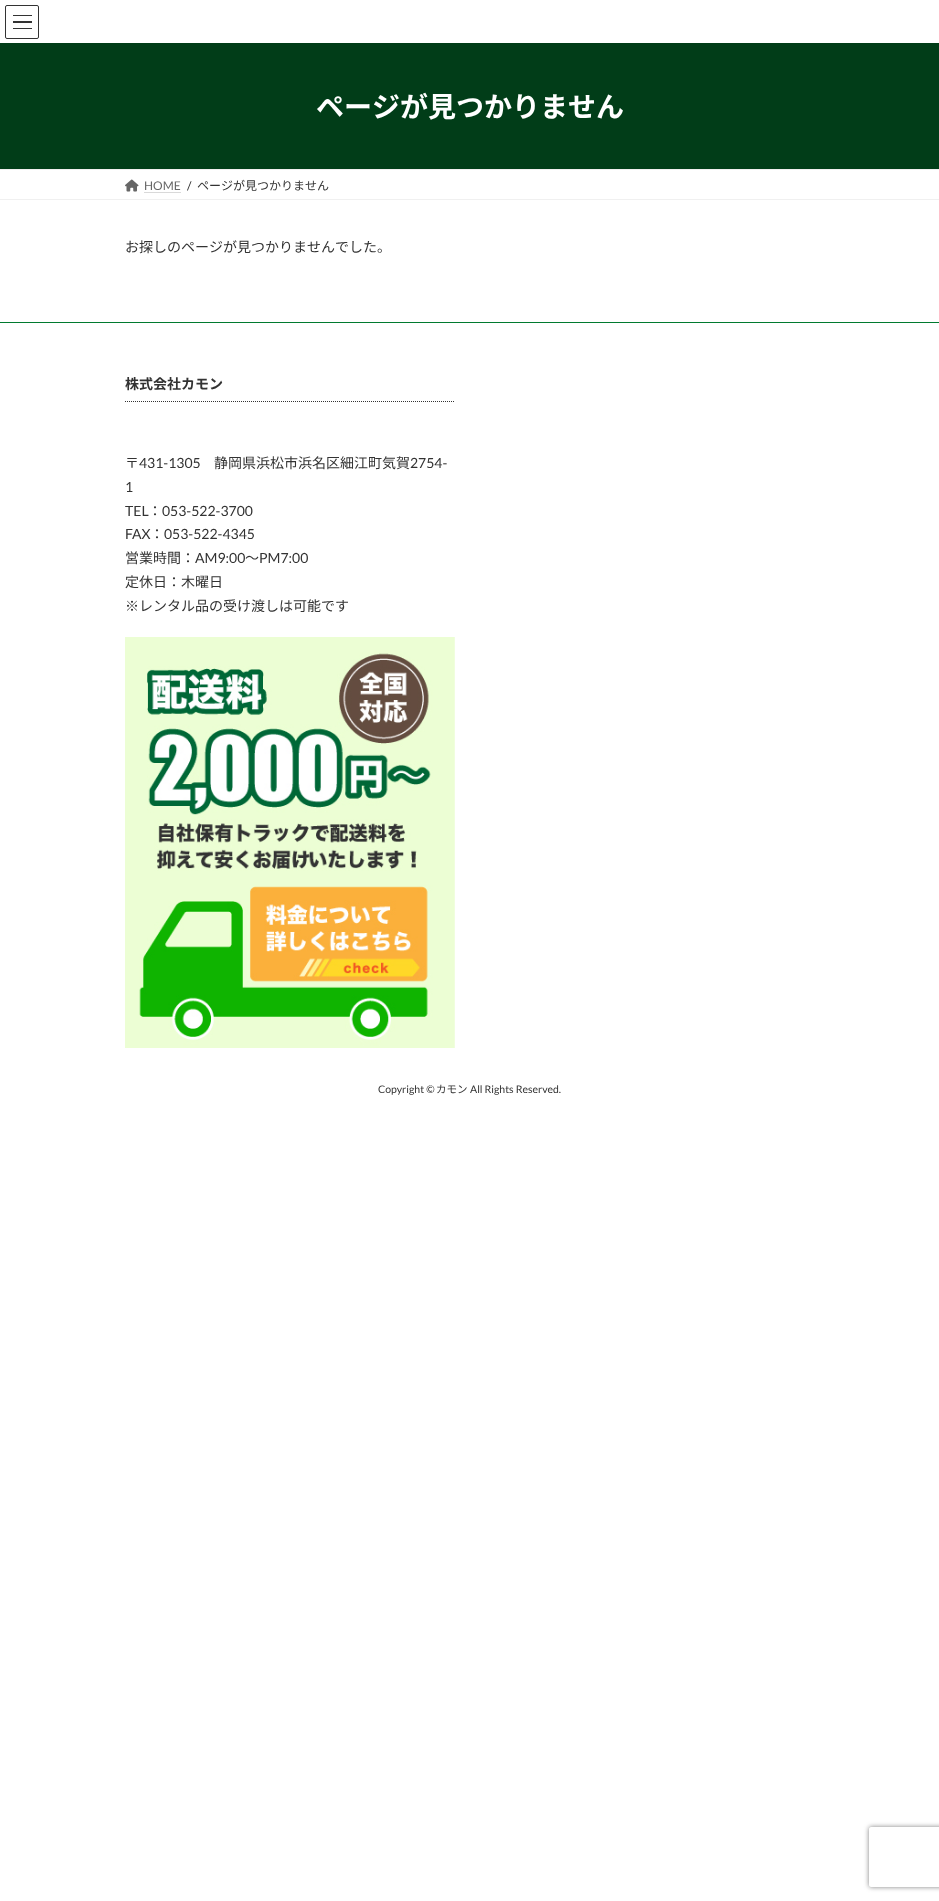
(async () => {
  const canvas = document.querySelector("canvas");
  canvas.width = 939;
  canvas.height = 1901;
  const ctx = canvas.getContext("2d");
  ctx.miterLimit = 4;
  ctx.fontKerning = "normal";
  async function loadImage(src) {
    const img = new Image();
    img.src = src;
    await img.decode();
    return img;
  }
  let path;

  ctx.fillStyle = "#ffffff";
  ctx.fillRect(0, 0, 939, 1901);
  for (const [x, y, w, h, color] of [
    [13, 15, 19, 1, "#333333"],
    [13, 21, 19, 2, "#333333"],
    [13, 28, 19, 1, "#333333"],
  ]) {
    ctx.fillStyle = color;
    ctx.fillRect(x, y, w, h);
  }
  ctx.beginPath();
  ctx.roundRect(5.5, 5.5, 33, 33, 1.5);
  ctx.strokeStyle = "#333333";
  ctx.stroke();
  for (const [x, y, w, h, color] of [
    [0, 43, 939, 126, "#013d18"],
    [0, 169, 939, 1, "#f0f0f0"],
    [0, 199, 939, 1, "#f0f0f0"],
  ]) {
    ctx.fillStyle = color;
    ctx.fillRect(x, y, w, h);
  }
  ctx.drawImage(await loadImage("img/1.png"), 125, 179, 14, 13);
  path = new Path2D("M144.5 192.5H181");
  ctx.strokeStyle = "#b3b3b3";
  ctx.setLineDash([1, 1]);
  ctx.stroke(path);
  ctx.fillStyle = "#017a2f";
  ctx.fillRect(0, 322, 939, 1);
  path = new Path2D("M125 401.5H455");
  ctx.strokeStyle = "#333333";
  ctx.stroke(path);
  ctx.drawImage(await loadImage("img/2.png"), 125, 637, 330, 411);
  ctx.save();
  path = new Path2D("M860 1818H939V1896H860ZM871 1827H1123C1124 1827 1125 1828 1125 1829V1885C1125 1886 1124 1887 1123 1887H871C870 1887 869 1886 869 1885V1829C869 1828 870 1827 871 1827Z");
  ctx.clip(path, "evenodd");
  ctx.fillStyle = "#808080";
  ctx.filter = "blur(2.5px)";
  ctx.beginPath();
  ctx.roundRect(869, 1827, 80, 60, 2);
  ctx.fill();
  ctx.filter = "none";
  ctx.restore();
  ctx.font = "bold 28px Noto Sans JP";
  ctx.fillStyle = "#ffffff";
  ctx.fillText("ページが見つかりません", 316, 117);
  ctx.font = "12px Lato";
  ctx.fillStyle = "#666666";
  ctx.fillText("HOME", 144, 190);
  ctx.fillStyle = "#333333";
  ctx.fillText("/", 187, 190);
  ctx.font = "12px Noto Sans JP";
  ctx.fillText("ページが見つかりません", 197, 190);
  ctx.font = "14px Noto Sans JP";
  ctx.fillText("お探しのページが見つかりませんでした。", 125, 252);
  ctx.font = "bold 14px Noto Sans JP";
  ctx.fillText("株式会社カモン", 125, 389);
  ctx.font = "14px Noto Sans JP";
  ctx.fillText("〒", 125, 468);
  ctx.font = "14px Lato";
  ctx.fillText("431-1305", 139, 468);
  ctx.font = "14px Noto Sans JP";
  ctx.fillText("静岡県浜松市浜名区細江町気賀", 214, 468);
  ctx.font = "14px Lato";
  for (const [text, x, y] of [
    ["2754-", 410, 468],
    ["1", 125, 492],
    ["TEL", 125, 516],
  ]) {
    ctx.fillText(text, x, y);
  }
  ctx.font = "14px Noto Sans JP";
  ctx.fillText("：", 148, 516);
  ctx.font = "14px Lato";
  ctx.fillText("053-522-3700", 162, 516);
  ctx.fillText("FAX", 125, 539);
  ctx.font = "14px Noto Sans JP";
  ctx.fillText("：", 150, 539);
  ctx.font = "14px Lato";
  ctx.fillText("053-522-4345", 164, 539);
  ctx.font = "14px Noto Sans JP";
  ctx.fillText("営業時間：", 125, 563);
  ctx.font = "14px Lato";
  ctx.fillText("AM9:00", 195, 563);
  ctx.font = "14px Noto Sans JP";
  ctx.fillText("～", 245, 563);
  ctx.font = "14px Lato";
  ctx.fillText("PM7:00", 259, 563);
  ctx.font = "14px Noto Sans JP";
  ctx.fillText("定休日：木曜日", 125, 587);
  ctx.fillText("※レンタル品の受け渡しは可能です", 125, 611);
  ctx.font = "10.5px Lato";
  ctx.fillText("Copyright ©", 378, 1093);
  ctx.font = "10.5px Noto Sans JP";
  ctx.fillText("カモン", 436, 1093);
  ctx.font = "10.5px Lato";
  ctx.fillText("All Rights Reserved.", 470, 1093);
})();
